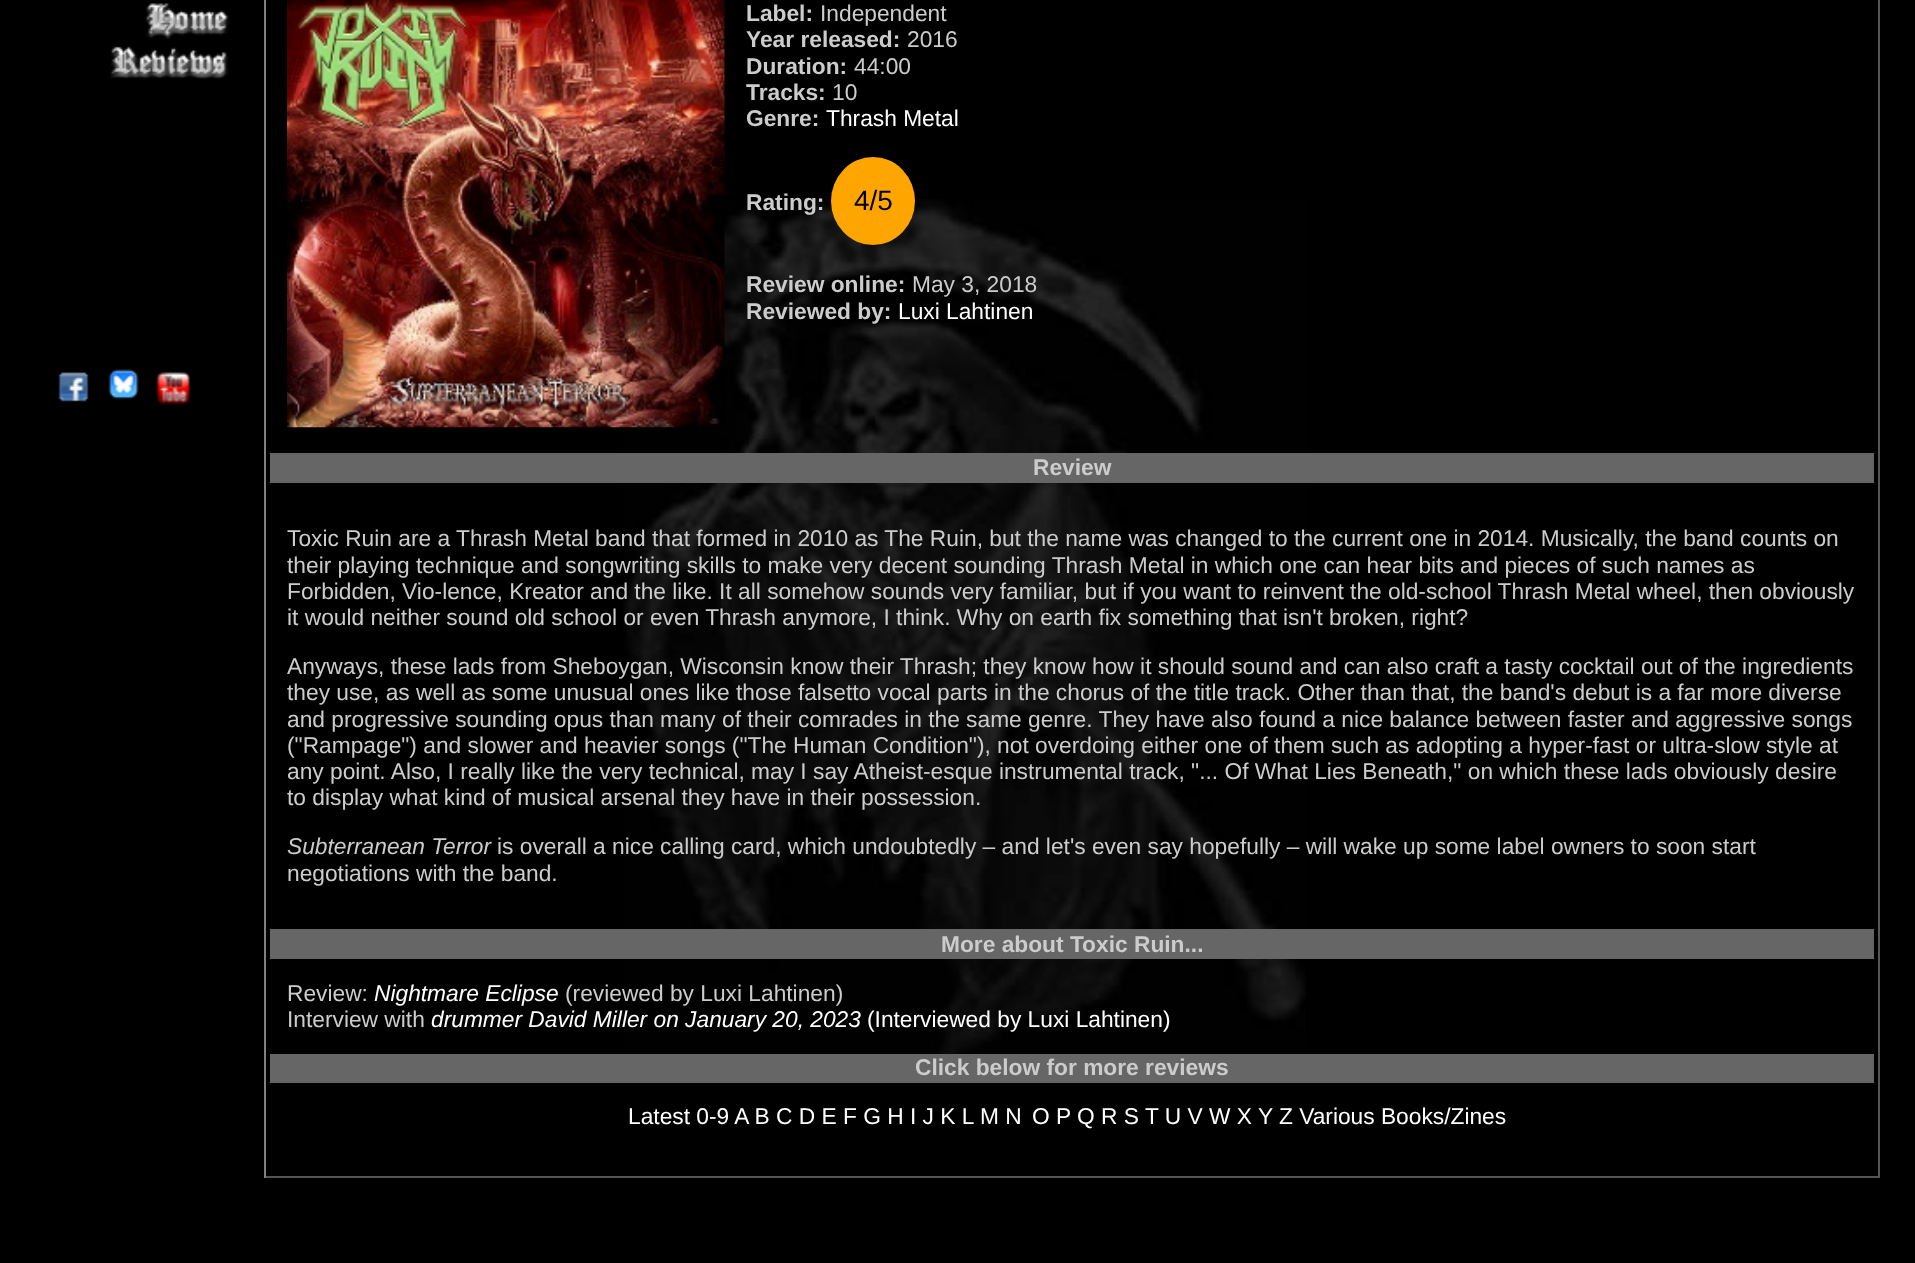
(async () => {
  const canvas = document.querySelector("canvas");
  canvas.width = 1915;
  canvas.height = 1263;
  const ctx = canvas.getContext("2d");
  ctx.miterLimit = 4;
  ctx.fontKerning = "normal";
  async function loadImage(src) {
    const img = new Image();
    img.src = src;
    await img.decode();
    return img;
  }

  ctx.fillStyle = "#000000";
  ctx.fillRect(0, 0, 1915, 1263);
  ctx.drawImage(await loadImage("img/1.png"), 623, 199, 683, 855);
  ctx.drawImage(await loadImage("img/2.png"), 145, 3, 85, 36);
  ctx.drawImage(await loadImage("img/3.png"), 110, 45, 119, 34);
  ctx.drawImage(await loadImage("img/4.png"), 58, 372, 31, 30);
  ctx.drawImage(await loadImage("img/5.png"), 108, 369, 31, 31);
  ctx.drawImage(await loadImage("img/6.png"), 156, 371, 35, 34);
  for (const [x, y, w, h, color] of [
    [1878, 0, 2, 1178, "#555555"],
    [264, 1176, 1616, 2, "#555555"],
    [264, 0, 2, 1178, "#808080"],
  ]) {
    ctx.fillStyle = color;
    ctx.fillRect(x, y, w, h);
  }
  ctx.drawImage(await loadImage("img/7.png"), 287, 0, 438, 428);
  ctx.fillStyle = "#ffa500";
  ctx.beginPath();
  ctx.ellipse(873, 201, 42, 44, 0, 0, Math.PI * 2);
  ctx.fill();
  for (const [x, y, w, h, color] of [
    [270, 453, 1604, 30, "#666666"],
    [270, 929, 1604, 30, "#666666"],
    [270, 1054, 1604, 29, "#666666"],
  ]) {
    ctx.fillStyle = color;
    ctx.fillRect(x, y, w, h);
  }
  ctx.font = "bold 22.75px Liberation Sans";
  ctx.fillStyle = "#cccccc";
  ctx.fillText("Label:", 746, 21);
  ctx.font = "22.75px Liberation Sans";
  ctx.fillText("Independent", 820, 21);
  ctx.font = "bold 22.75px Liberation Sans";
  ctx.fillText("Year released:", 746, 47);
  ctx.font = "22.75px Liberation Sans";
  ctx.fillText("2016", 907, 47);
  ctx.font = "bold 22.75px Liberation Sans";
  ctx.fillText("Duration:", 746, 74);
  ctx.font = "22.75px Liberation Sans";
  ctx.fillText("44:00", 854, 74);
  ctx.font = "bold 22.75px Liberation Sans";
  ctx.fillText("Tracks:", 746, 100);
  ctx.font = "22.75px Liberation Sans";
  ctx.fillText("10", 832, 100);
  ctx.font = "bold 22.75px Liberation Sans";
  ctx.fillText("Genre:", 746, 126);
  ctx.font = "22.75px Liberation Sans";
  ctx.fillStyle = "#ffffff";
  ctx.fillText("Thrash Metal", 826, 126);
  ctx.font = "bold 22.75px Liberation Sans";
  ctx.fillStyle = "#cccccc";
  ctx.fillText("Rating:", 746, 210);
  ctx.font = "28px Liberation Sans";
  ctx.fillStyle = "#000000";
  ctx.fillText("4/5", 854, 210);
  ctx.font = "bold 22.75px Liberation Sans";
  ctx.fillStyle = "#cccccc";
  ctx.fillText("Review online:", 746, 292);
  ctx.font = "22.75px Liberation Sans";
  ctx.fillText("May 3, 2018", 912, 292);
  ctx.font = "bold 22.75px Liberation Sans";
  ctx.fillText("Reviewed by:", 746, 319);
  ctx.font = "22.75px Liberation Sans";
  ctx.fillStyle = "#ffffff";
  ctx.fillText("Luxi Lahtinen", 898, 319);
  ctx.font = "bold 22.75px Liberation Sans";
  ctx.fillStyle = "#cccccc";
  ctx.fillText("Review", 1033, 475);
  ctx.font = "22.75px Liberation Sans";
  for (const [text, x, y] of [
    ["Toxic Ruin are a Thrash Metal band that formed in 2010 as The Ruin, but the name was changed to the current one in 2014. Musically, the band counts on", 287, 546],
    ["their playing technique and songwriting skills to make very decent sounding Thrash Metal in which one can hear bits and pieces of such names as", 287, 573],
    ["Forbidden, Vio-lence, Kreator and the like. It all somehow sounds very familiar, but if you want to reinvent the old-school Thrash Metal wheel, then obviously", 287, 599],
    ["it would neither sound old school or even Thrash anymore, I think. Why on earth fix something that isn't broken, right?", 287, 625],
    ["Anyways, these lads from Sheboygan, Wisconsin know their Thrash; they know how it should sound and can also craft a tasty cocktail out of the ingredients", 287, 674],
    ["they use, as well as some unusual ones like those falsetto vocal parts in the chorus of the title track. Other than that, the band's debut is a far more diverse", 287, 700],
    ["and progressive sounding opus than many of their comrades in the same genre. They have also found a nice balance between faster and aggressive songs", 287, 727],
    ["(\"Rampage\") and slower and heavier songs (\"The Human Condition\"), not overdoing either one of them such as adopting a hyper-fast or ultra-slow style at", 287, 753],
    ["any point. Also, I really like the very technical, may I say Atheist-esque instrumental track, \"... Of What Lies Beneath,\" on which these lads obviously desire", 287, 779],
    ["to display what kind of musical arsenal they have in their possession.", 287, 805],
  ]) {
    ctx.fillText(text, x, y);
  }
  ctx.font = "italic 22.75px Liberation Sans";
  ctx.fillText("Subterranean Terror", 287, 854);
  ctx.font = "22.75px Liberation Sans";
  ctx.fillText("is overall a nice calling card, which undoubtedly – and let's even say hopefully – will wake up some label owners to soon start", 497, 854);
  ctx.fillText("negotiations with the band.", 287, 881);
  ctx.font = "bold 22.75px Liberation Sans";
  ctx.fillText("More about Toxic Ruin...", 941, 952);
  ctx.font = "22.75px Liberation Sans";
  ctx.fillText("Review:", 287, 1001);
  ctx.font = "italic 22.75px Liberation Sans";
  ctx.fillStyle = "#ffffff";
  ctx.fillText("Nightmare Eclipse", 374, 1001);
  ctx.font = "22.75px Liberation Sans";
  ctx.fillStyle = "#cccccc";
  ctx.fillText("(reviewed by Luxi Lahtinen)", 565, 1001);
  ctx.fillText("Interview with", 287, 1027);
  ctx.font = "italic 22.75px Liberation Sans";
  ctx.fillStyle = "#ffffff";
  ctx.fillText("drummer David Miller on January 20, 2023", 431, 1027);
  ctx.font = "22.75px Liberation Sans";
  ctx.fillText("(Interviewed by Luxi Lahtinen)", 867, 1027);
  ctx.font = "bold 22.75px Liberation Sans";
  ctx.fillStyle = "#cccccc";
  ctx.fillText("Click below for more reviews", 915, 1075);
  ctx.font = "22.75px Liberation Sans";
  ctx.fillStyle = "#ffffff";
  ctx.fillText("Latest 0-9 A B C D E F G H I J K L M N", 628, 1124);
  ctx.fillText("O P Q R S T U V W X Y Z Various Books/Zines", 1032, 1124);
})();
